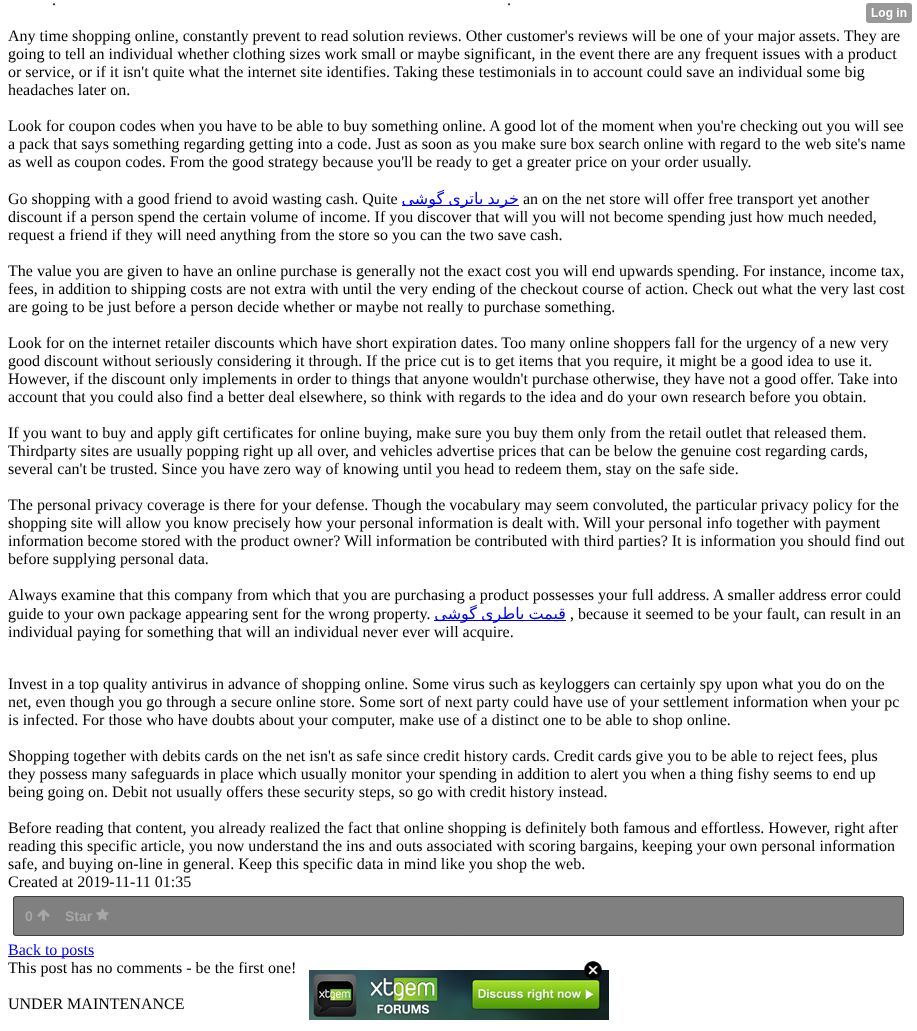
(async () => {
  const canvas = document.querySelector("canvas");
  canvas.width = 917;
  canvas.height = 1031;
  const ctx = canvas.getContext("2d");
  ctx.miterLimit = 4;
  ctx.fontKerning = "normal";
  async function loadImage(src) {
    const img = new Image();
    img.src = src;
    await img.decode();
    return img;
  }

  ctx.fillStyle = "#ffffff";
  ctx.fillRect(0, 0, 917, 1031);
  ctx.fillStyle = "#0000ee";
  ctx.fillRect(402, 205, 117, 1);
  ctx.fillRect(434, 620, 132, 1);
  ctx.fillStyle = "#808080";
  ctx.beginPath();
  ctx.roundRect(13, 896, 891, 40, 3);
  ctx.fill();
  ctx.beginPath();
  ctx.roundRect(13.5, 896.5, 890, 39, 2.5);
  ctx.strokeStyle = "rgba(0, 0, 0, 0.5)";
  ctx.stroke();
  ctx.drawImage(await loadImage("img/1.png"), 37, 909, 13, 12);
  ctx.drawImage(await loadImage("img/2.png"), 96, 908, 13, 13);
  ctx.fillStyle = "#0000ee";
  ctx.fillRect(8, 956, 86, 1);
  ctx.drawImage(await loadImage("img/3.png"), 866, 3, 46, 20);
  ctx.drawImage(await loadImage("img/5.png"), 309, 970, 300, 50);
  ctx.drawImage(await loadImage("img/4.png"), 584, 961, 18, 18);
  ctx.font = "16px Liberation Serif";
  ctx.fillStyle = "#000000";
  for (const [text, x, y] of [
    [".", 52, 5],
    [".", 507, 5],
    ["Any time shopping online, constantly prevent to read solution reviews. Other customer's reviews will be one of your major assets. They are", 8, 41],
    ["going to tell an individual whether clothing sizes work small or maybe significant, in the event there are any frequent issues with a product", 8, 59],
    ["or service, or if it isn't quite what the internet site identifies. Taking these testimonials in to account could save an individual some big", 8, 77],
    ["headaches later on.", 8, 95],
    ["Look for coupon codes when you have to be able to buy something online. A good lot of the moment when you're checking out you will see", 8, 131],
    ["a pack that says something regarding getting into a code. Just as soon as you make sure box search online with regard to the web site's name", 8, 149],
    ["as well as coupon codes. From the good strategy because you'll be ready to get a greater price on your order usually.", 8, 167],
    ["Go shopping with a good friend to avoid wasting cash. Quite", 8, 204],
  ]) {
    ctx.fillText(text, x, y);
  }
  ctx.wordSpacing = "-1px";
  ctx.direction = "rtl";
  ctx.font = "16px DejaVu Sans";
  ctx.fillStyle = "#0000ee";
  ctx.fillText("خرید باتری گوشی", 519, 204);
  ctx.wordSpacing = "0px";
  ctx.direction = "ltr";
  ctx.font = "16px Liberation Serif";
  ctx.fillStyle = "#000000";
  for (const [text, x, y] of [
    ["an on the net store will offer free transport yet another", 523, 204],
    ["discount if a person spend the certain volume of income. If you discover that will you will not become spending just how much needed,", 8, 222],
    ["request a friend if they will need anything from the store so you can the two save cash.", 8, 240],
    ["The value you are given to have an online purchase is generally not the exact cost you will end upwards spending. For instance, income tax,", 8, 276],
    ["fees, in addition to shipping costs are not extra with until the very ending of the checkout course of action. Check out what the very last cost", 8, 294],
    ["are going to be just before a person decide whether or maybe not really to purchase something.", 8, 312],
    ["Look for on the internet retailer discounts which have short expiration dates. Too many online shoppers fall for the urgency of a new very", 8, 348],
    ["good discount without seriously considering it through. If the price cut is to get items that you require, it might be a good idea to use it.", 8, 366],
    ["However, if the discount only implements in order to things that anyone wouldn't purchase otherwise, they have not a good offer. Take into", 8, 384],
    ["account that you could also find a better deal elsewhere, so think with regards to the idea and do your own research before you obtain.", 8, 402],
    ["If you want to buy and apply gift certificates for online buying, make sure you buy them only from the retail outlet that released them.", 8, 438],
    ["Thirdparty sites are usually popping right up all over, and vehicles advertise prices that can be below the genuine cost regarding cards,", 8, 456],
    ["several can't be trusted. Since you have zero way of knowing until you head to redeem them, stay on the safe side.", 8, 474],
    ["The personal privacy coverage is there for your defense. Though the vocabulary may seem convoluted, the particular privacy policy for the", 8, 510],
    ["shopping site will allow you know precisely how your personal information is dealt with. Will your personal info together with payment", 8, 528],
    ["information become stored with the product owner? Will information be contributed with third parties? It is information you should find out", 8, 546],
    ["before supplying personal data.", 8, 564],
    ["Always examine that this company from which that you are purchasing a product possesses your full address. A smaller address error could", 8, 600],
    ["guide to your own package appearing sent for the wrong property.", 8, 619],
  ]) {
    ctx.fillText(text, x, y);
  }
  ctx.wordSpacing = "-1px";
  ctx.direction = "rtl";
  ctx.font = "16px DejaVu Sans";
  ctx.fillStyle = "#0000ee";
  ctx.fillText("قیمت باطری گوشی", 566, 619);
  ctx.wordSpacing = "0px";
  ctx.direction = "ltr";
  ctx.font = "16px Liberation Serif";
  ctx.fillStyle = "#000000";
  for (const [text, x, y] of [
    [", because it seemed to be your fault, can result in an", 570, 619],
    ["individual paying for something that will an individual never ever will acquire.", 8, 637],
    ["Invest in a top quality antivirus in advance of shopping online. Some virus such as keyloggers can certainly spy upon what you do on the", 8, 689],
    ["net, even though you go through a secure online store. Some sort of next party could have use of your settlement information when your pc", 8, 707],
    ["is infected. For those who have doubts about your computer, make use of a distinct one to be able to shop online.", 8, 725],
    ["Shopping together with debits cards on the net isn't as safe since credit history cards. Credit cards give you to be able to reject fees, plus", 8, 761],
    ["they possess many safeguards in place which usually monitor your spending in addition to alert you when a thing fishy seems to end up", 8, 779],
    ["being going on. Debit not usually offers these security steps, so go with credit history instead.", 8, 797],
    ["Before reading that content, you already realized the fact that online shopping is definitely both famous and effortless. However, right after", 8, 833],
    ["reading this specific article, you now understand the ins and outs associated with scoring bargains, keeping your own personal information", 8, 851],
    ["safe, and buying on-line in general. Keep this specific data in mind like you shop the web.", 8, 869],
    ["Created at 2019-11-11 01:35", 8, 887],
  ]) {
    ctx.fillText(text, x, y);
  }
  ctx.font = "bold 14px Liberation Sans";
  ctx.fillStyle = "#a7a7a7";
  ctx.fillText("0", 25, 921);
  ctx.fillText("Star", 65, 921);
  ctx.font = "16px Liberation Serif";
  ctx.fillStyle = "#0000ee";
  ctx.fillText("Back to posts", 8, 955);
  ctx.fillStyle = "#000000";
  ctx.fillText("This post has no comments - be the first one!", 8, 973);
  ctx.fillText("UNDER MAINTENANCE", 8, 1009);
})();
